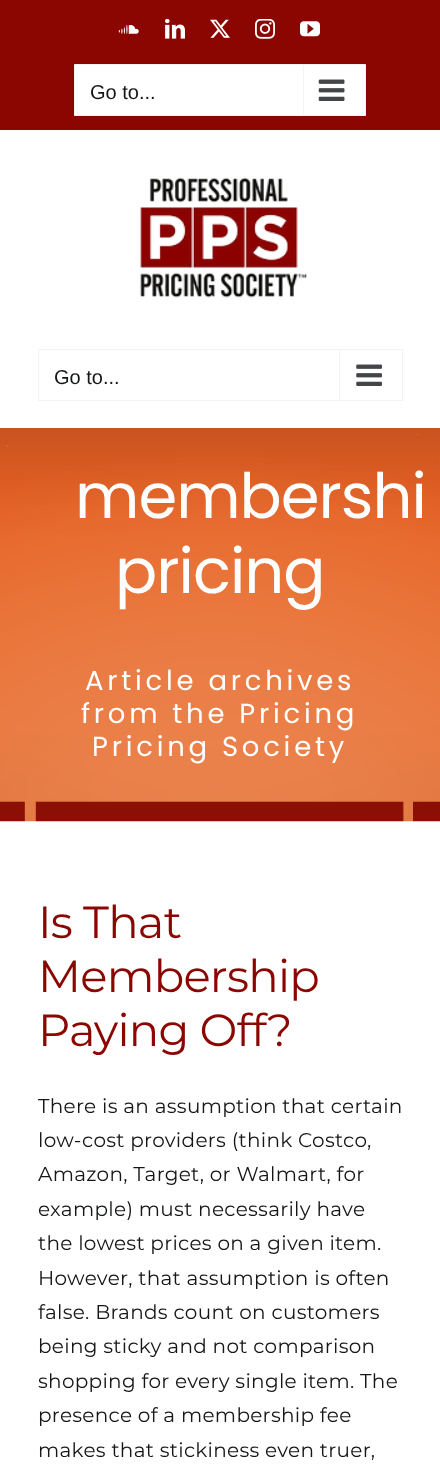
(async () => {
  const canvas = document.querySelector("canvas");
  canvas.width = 440;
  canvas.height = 1478;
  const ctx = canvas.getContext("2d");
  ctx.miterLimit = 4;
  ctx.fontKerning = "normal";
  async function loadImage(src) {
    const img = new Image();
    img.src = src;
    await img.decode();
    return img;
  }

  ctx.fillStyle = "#ffffff";
  ctx.fillRect(0, 0, 440, 1478);
  ctx.fillStyle = "#8b0600";
  ctx.fillRect(0, 0, 440, 130);
  ctx.drawImage(await loadImage("img/1.png"), 118, 25, 21, 9);
  ctx.drawImage(await loadImage("img/2.png"), 165, 19, 20, 20);
  ctx.drawImage(await loadImage("img/3.png"), 210, 19, 20, 19);
  ctx.drawImage(await loadImage("img/4.png"), 255, 19, 20, 20);
  ctx.drawImage(await loadImage("img/5.png"), 300, 21, 20, 16);
  ctx.fillStyle = "#ffffff";
  ctx.beginPath();
  ctx.rect(74.5, 64.5, 291, 51);
  ctx.fill();
  ctx.strokeStyle = "#f2f3f5";
  ctx.stroke();
  ctx.fillStyle = "#f2f3f5";
  ctx.fillRect(303, 65, 1, 50);
  ctx.drawImage(await loadImage("img/6.png"), 318, 79, 27, 22);
  ctx.drawImage(await loadImage("img/7.png"), 139, 177, 168, 121);
  ctx.strokeRect(38.5, 349.5, 364, 51);
  ctx.fillRect(339, 350, 1, 50);
  ctx.drawImage(await loadImage("img/8.png"), 356, 364, 26, 22);
  ctx.drawImage(await loadImage("img/9.png"), 0, 428, 440, 394);
  ctx.font = "20px Liberation Sans";
  ctx.fillStyle = "#141617";
  ctx.fillText("Go to...", 90, 99);
  ctx.fillText("Go to...", 54, 384);
  ctx.letterSpacing = "-1px";
  ctx.font = "62.5px Poppins";
  ctx.fillStyle = "#ffffff";
  ctx.fillText("membershi", 75, 518);
  ctx.fillText("pricing", 115, 593);
  ctx.letterSpacing = "3.75px";
  ctx.font = "27.5px Poppins";
  for (const [text, x, y] of [
    ["Article archives", 85, 690],
    ["from the Pricing", 81, 723],
    ["Pricing Society", 92, 756],
  ]) {
    ctx.fillText(text, x, y);
  }
  ctx.letterSpacing = "-0.75px";
  ctx.font = "45px Montserrat";
  ctx.fillStyle = "#8b0600";
  for (const [text, x, y] of [
    ["Is That", 38, 938],
    ["Membership", 38, 992],
    ["Paying Off?", 38, 1046],
  ]) {
    ctx.fillText(text, x, y);
  }
  ctx.letterSpacing = "0.3px";
  ctx.font = "20px Montserrat";
  ctx.fillStyle = "#141617";
  for (const [text, x, y] of [
    ["There is an assumption that certain", 38, 1113],
    ["low-cost providers (think Costco,", 38, 1147],
    ["Amazon, Target, or Walmart, for", 38, 1181],
    ["example) must necessarily have", 38, 1216],
    ["the lowest prices on a given item.", 38, 1250],
    ["However, that assumption is often", 38, 1285],
    ["false. Brands count on customers", 38, 1319],
    ["being sticky and not comparison", 38, 1353],
    ["shopping for every single item. The", 38, 1388],
    ["presence of a membership fee", 38, 1422],
    ["makes that stickiness even truer,", 38, 1457],
  ]) {
    ctx.fillText(text, x, y);
  }
})();
